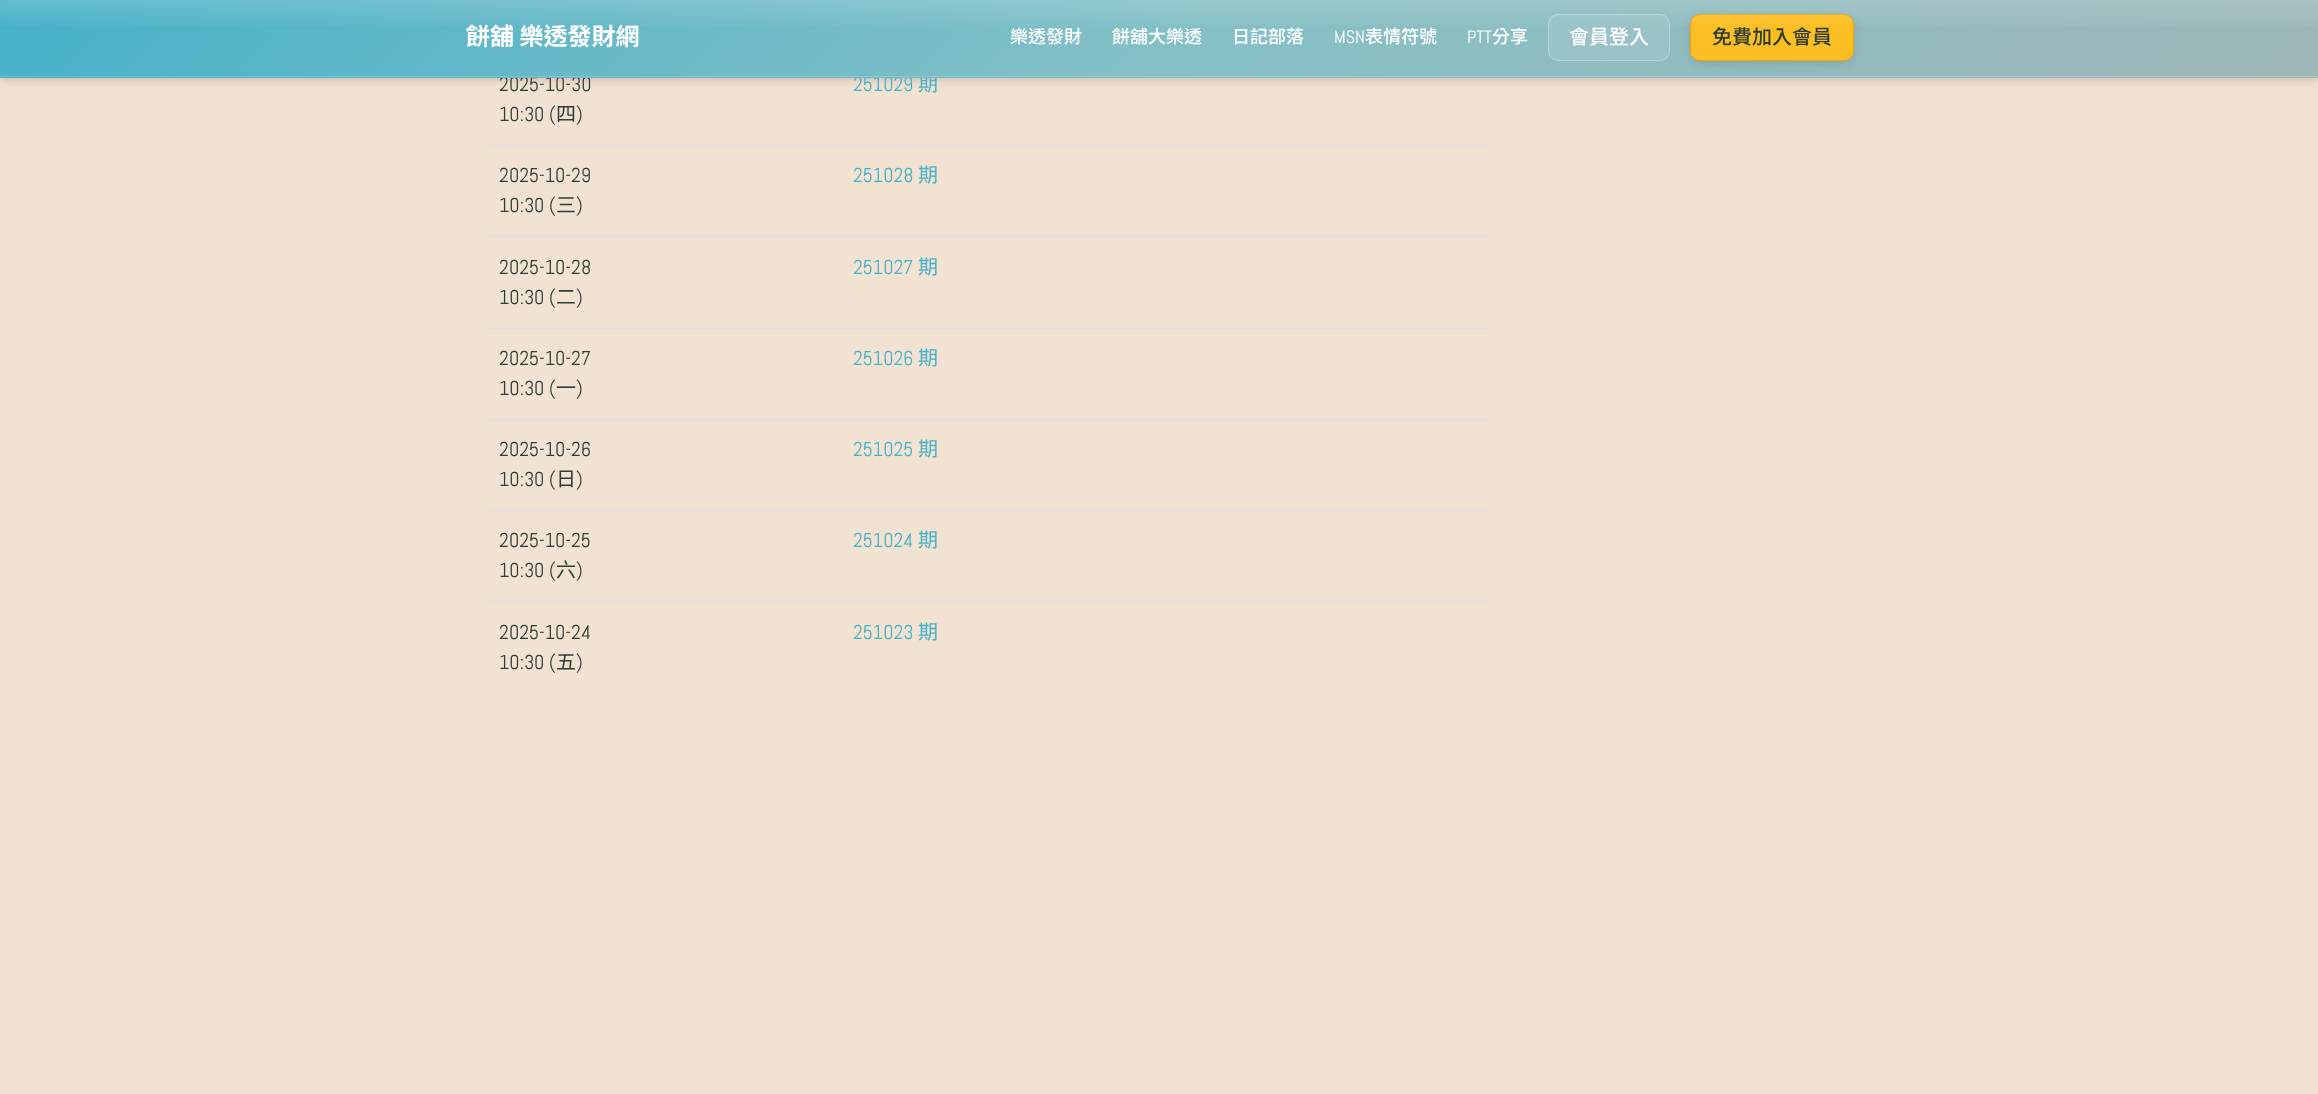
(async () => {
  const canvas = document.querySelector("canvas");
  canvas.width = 2318;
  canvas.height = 1094;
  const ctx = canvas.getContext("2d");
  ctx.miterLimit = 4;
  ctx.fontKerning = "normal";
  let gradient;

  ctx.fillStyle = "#f2e2d2";
  ctx.fillRect(0, 0, 2318, 1094);
  ctx.fillStyle = "rgba(0, 0, 0, 0.06)";
  ctx.filter = "blur(2.5px)";
  ctx.beginPath();
  ctx.rect(1, 4, 2317, 75);
  ctx.fill();
  ctx.filter = "none";
  ctx.fillStyle = "rgba(0, 0, 0, 0.1)";
  ctx.filter = "blur(4px)";
  ctx.beginPath();
  ctx.rect(1, 6, 2317, 75);
  ctx.fill();
  ctx.filter = "none";
  for (const [x, y, w, h, color] of [
    [485, 145, 1003, 1, "#dee2e6"],
    [485, 236, 1003, 1, "#dee2e6"],
    [485, 328, 1003, 1, "#dee2e6"],
    [485, 419, 1003, 1, "#dee2e6"],
    [485, 510, 1003, 1, "#dee2e6"],
    [485, 601, 1003, 1, "#dee2e6"],
  ]) {
    ctx.fillStyle = color;
    ctx.fillRect(x, y, w, h);
  }
  ctx.font = "20px Abel";
  ctx.fillStyle = "#2c3e35";
  ctx.fillText("2025-10-30", 499, 91);
  ctx.fillText("10:30 (", 499, 121);
  ctx.font = "20px Noto Sans TC";
  ctx.fillText("四", 556, 121);
  ctx.font = "20px Abel";
  ctx.fillText(")", 576, 121);
  ctx.fillStyle = "#46b1c9";
  ctx.fillText("251029", 853, 91);
  ctx.font = "20px Noto Sans TC";
  ctx.fillText("期", 918, 91);
  gradient = ctx.createLinearGradient(561, -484, 1758, 713);
  gradient.addColorStop(0, "#46b1c9");
  gradient.addColorStop(0.5, "#84c0c6");
  gradient.addColorStop(1, "#9fb7b9");
  ctx.fillStyle = gradient;
  ctx.fillRect(0, 76, 2318, 2);
  ctx.fillStyle = "rgba(255, 255, 255, 0.2)";
  ctx.fillRect(0, 76, 2318, 1);
  gradient = ctx.createLinearGradient(561, -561, 1758, 637);
  gradient.addColorStop(0, "#46b1c9");
  gradient.addColorStop(0.5, "#84c0c6");
  gradient.addColorStop(1, "#9fb7b9");
  ctx.fillStyle = gradient;
  ctx.fillRect(0, 0, 2318, 76);
  ctx.fillStyle = "rgba(0, 0, 0, 0.1)";
  ctx.filter = "blur(4px)";
  ctx.beginPath();
  ctx.roundRect(1690, 16, 164, 48, 10);
  ctx.fill();
  ctx.filter = "none";
  ctx.fillStyle = "#fbbf24";
  ctx.beginPath();
  ctx.roundRect(1690.5, 14.5, 163, 46, 9.5);
  ctx.fill();
  ctx.strokeStyle = "#f59e0b";
  ctx.stroke();
  ctx.fillStyle = "rgba(255, 255, 255, 0.1)";
  ctx.beginPath();
  ctx.roundRect(1548, 14, 122, 47, 10);
  ctx.fill();
  ctx.beginPath();
  ctx.roundRect(1548.5, 14.5, 121, 46, 9.5);
  ctx.strokeStyle = "rgba(255, 255, 255, 0.3)";
  ctx.stroke();
  gradient = ctx.createLinearGradient(1159, 0, 1159, 30);
  gradient.addColorStop(0, "rgba(255, 255, 255, 0.15)");
  gradient.addColorStop(1, "rgba(255, 255, 255, 0)");
  ctx.fillStyle = gradient;
  ctx.fillRect(0, 0, 2318, 26);
  ctx.font = "500 20px Noto Sans TC";
  ctx.fillStyle = "#2c3e35";
  ctx.fillText("免費加入會員", 1712, 44);
  ctx.fillStyle = "#ffffff";
  ctx.fillText("會員登入", 1569, 44);
  ctx.font = "500 18px Noto Sans TC";
  ctx.fillText("分享", 1492, 43);
  ctx.font = "18px Abel";
  ctx.fillText("PTT", 1467, 43);
  ctx.font = "500 18px Noto Sans TC";
  ctx.fillText("表情符號", 1365, 43);
  ctx.font = "18px Abel";
  ctx.fillText("MSN", 1334, 43);
  ctx.font = "500 18px Noto Sans TC";
  for (const [text, x, y] of [
    ["日記部落", 1232, 43],
    ["餅舖大樂透", 1112, 43],
    ["樂透發財", 1010, 43],
  ]) {
    ctx.fillText(text, x, y);
  }
  ctx.font = "bold 24px Noto Sans TC";
  ctx.fillText("餅舖 樂透發財網", 466, 45);
  ctx.font = "20px Abel";
  ctx.fillStyle = "#2c3e35";
  ctx.fillText("2025-10-29", 499, 182);
  ctx.fillText("10:30 (", 499, 212);
  ctx.font = "20px Noto Sans TC";
  ctx.fillText("三", 556, 212);
  ctx.font = "20px Abel";
  ctx.fillText(")", 576, 212);
  ctx.fillStyle = "#46b1c9";
  ctx.fillText("251028", 853, 182);
  ctx.font = "20px Noto Sans TC";
  ctx.fillText("期", 918, 182);
  ctx.font = "20px Abel";
  ctx.fillStyle = "#2c3e35";
  ctx.fillText("2025-10-28", 499, 274);
  ctx.fillText("10:30 (", 499, 304);
  ctx.font = "20px Noto Sans TC";
  ctx.fillText("二", 556, 304);
  ctx.font = "20px Abel";
  ctx.fillText(")", 576, 304);
  ctx.fillStyle = "#46b1c9";
  ctx.fillText("251027", 853, 274);
  ctx.font = "20px Noto Sans TC";
  ctx.fillText("期", 918, 274);
  ctx.font = "20px Abel";
  ctx.fillStyle = "#2c3e35";
  ctx.fillText("2025-10-27", 499, 365);
  ctx.fillText("10:30 (", 499, 395);
  ctx.font = "20px Noto Sans TC";
  ctx.fillText("一", 556, 395);
  ctx.font = "20px Abel";
  ctx.fillText(")", 576, 395);
  ctx.fillStyle = "#46b1c9";
  ctx.fillText("251026", 853, 365);
  ctx.font = "20px Noto Sans TC";
  ctx.fillText("期", 918, 365);
  ctx.font = "20px Abel";
  ctx.fillStyle = "#2c3e35";
  ctx.fillText("2025-10-26", 499, 456);
  ctx.fillText("10:30 (", 499, 486);
  ctx.font = "20px Noto Sans TC";
  ctx.fillText("日", 556, 486);
  ctx.font = "20px Abel";
  ctx.fillText(")", 576, 486);
  ctx.fillStyle = "#46b1c9";
  ctx.fillText("251025", 853, 456);
  ctx.font = "20px Noto Sans TC";
  ctx.fillText("期", 918, 456);
  ctx.font = "20px Abel";
  ctx.fillStyle = "#2c3e35";
  ctx.fillText("2025-10-25", 499, 547);
  ctx.fillText("10:30 (", 499, 577);
  ctx.font = "20px Noto Sans TC";
  ctx.fillText("六", 556, 577);
  ctx.font = "20px Abel";
  ctx.fillText(")", 576, 577);
  ctx.fillStyle = "#46b1c9";
  ctx.fillText("251024", 853, 547);
  ctx.font = "20px Noto Sans TC";
  ctx.fillText("期", 918, 547);
  ctx.font = "20px Abel";
  ctx.fillStyle = "#2c3e35";
  ctx.fillText("2025-10-24", 499, 639);
  ctx.fillText("10:30 (", 499, 669);
  ctx.font = "20px Noto Sans TC";
  ctx.fillText("五", 556, 669);
  ctx.font = "20px Abel";
  ctx.fillText(")", 576, 669);
  ctx.fillStyle = "#46b1c9";
  ctx.fillText("251023", 853, 639);
  ctx.font = "20px Noto Sans TC";
  ctx.fillText("期", 918, 639);
})();
